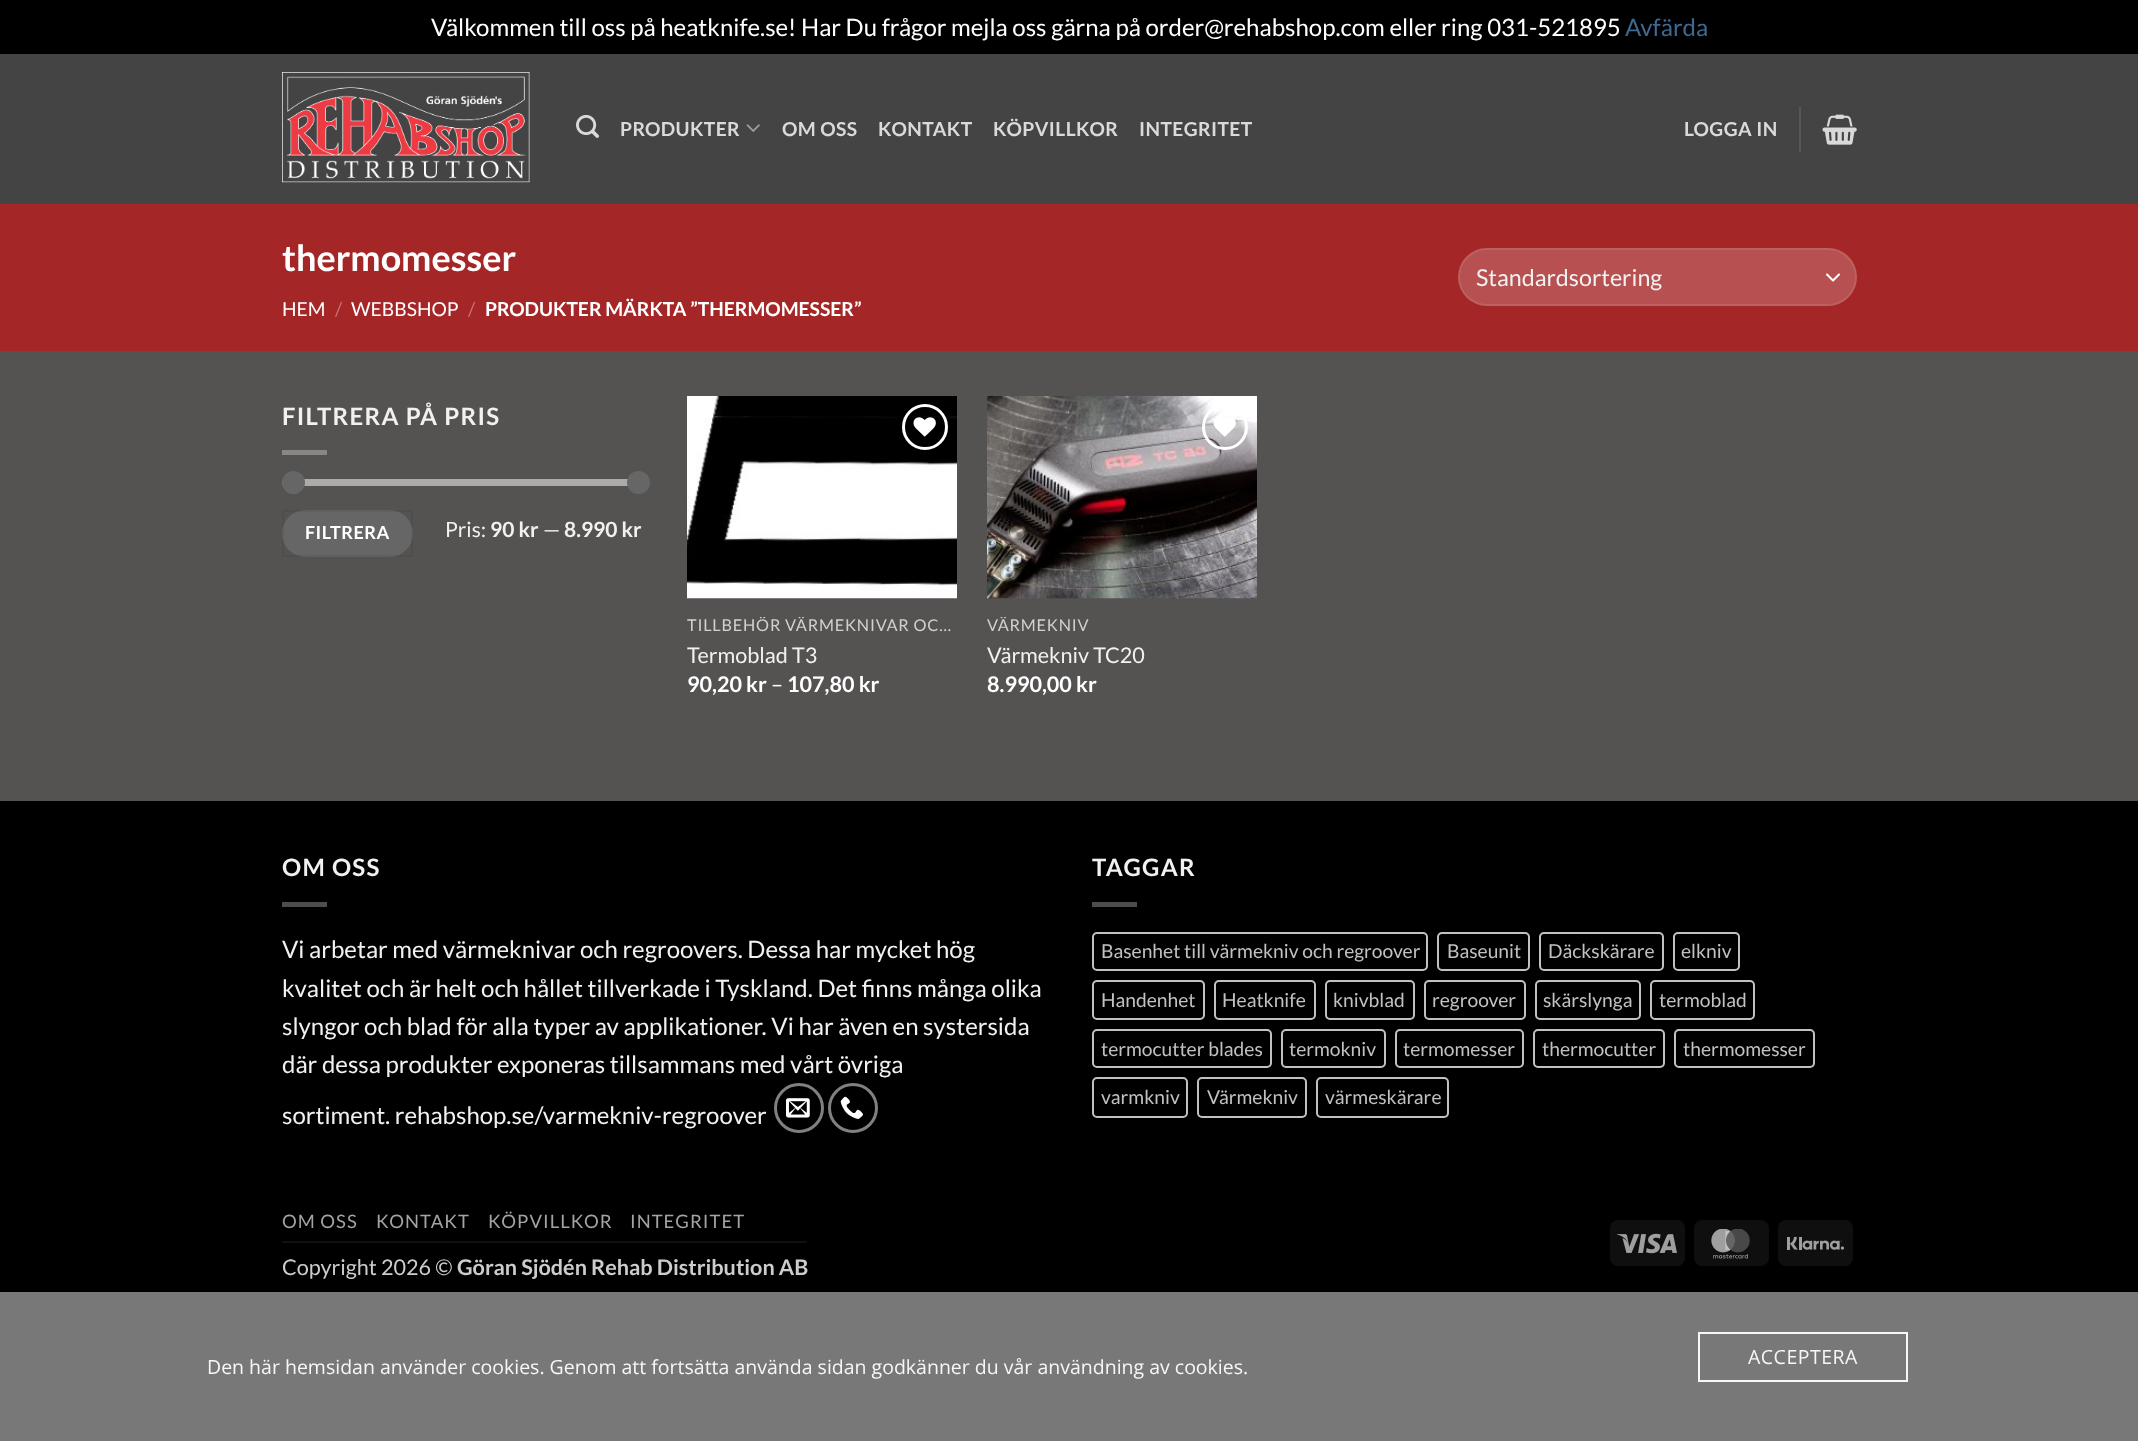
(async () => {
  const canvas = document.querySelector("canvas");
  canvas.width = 2138;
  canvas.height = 1441;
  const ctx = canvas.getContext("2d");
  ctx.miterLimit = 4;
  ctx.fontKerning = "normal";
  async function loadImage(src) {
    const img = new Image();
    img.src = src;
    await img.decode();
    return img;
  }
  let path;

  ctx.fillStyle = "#000000";
  ctx.fillRect(0, 0, 2138, 1441);
  ctx.fillStyle = "#555252";
  ctx.fillRect(0, 351, 2138, 450);
  ctx.fillStyle = "#444444";
  ctx.fillRect(0, 54, 2138, 150);
  ctx.drawImage(await loadImage("img/1.png"), 282, 72, 248, 111);
  ctx.drawImage(await loadImage("img/2.png"), 576, 114, 23, 24);
  ctx.drawImage(await loadImage("img/3.png"), 746, 124, 14, 8);
  ctx.fillStyle = "#575757";
  ctx.fillRect(1799, 107, 2, 45);
  ctx.drawImage(await loadImage("img/4.png"), 1822, 114, 35, 31);
  ctx.fillStyle = "#a52626";
  ctx.fillRect(0, 204, 2138, 147);
  ctx.fillStyle = "#b75151";
  ctx.beginPath();
  ctx.roundRect(1458, 248, 399, 58, 29);
  ctx.fill();
  path = new Path2D("M1827 274.5L1833 280.5L1839 274.5");
  ctx.strokeStyle = "#ffffff";
  ctx.lineWidth = 2;
  ctx.lineCap = "round";
  ctx.lineJoin = "round";
  ctx.stroke(path);
  ctx.beginPath();
  ctx.roundRect(1459, 249, 397, 56, 28);
  ctx.strokeStyle = "rgba(255, 255, 255, 0.09)";
  ctx.lineJoin = "miter";
  ctx.stroke();
  ctx.fillStyle = "#888686";
  ctx.fillRect(282, 450, 45, 5);
  ctx.fillStyle = "#f1f1f1";
  ctx.beginPath();
  ctx.roundRect(282, 479, 360, 7, 3.5);
  ctx.fill();
  ctx.fillStyle = "rgba(102, 102, 102, 0.5)";
  ctx.beginPath();
  ctx.roundRect(282, 479, 360, 7, 3.5);
  ctx.fill();
  ctx.fillStyle = "#666666";
  ctx.beginPath();
  ctx.arc(293.5, 482.5, 11.5, 0, Math.PI * 2);
  ctx.fill();
  ctx.beginPath();
  ctx.arc(638.5, 482.5, 11.5, 0, Math.PI * 2);
  ctx.fill();
  ctx.beginPath();
  ctx.roundRect(282, 510, 131, 47, 23.5);
  ctx.fill();
  ctx.strokeStyle = "rgba(0, 0, 0, 0.05)";
  ctx.strokeRect(283, 511, 129, 45);
  ctx.drawImage(await loadImage("img/5.png"), 687, 396, 270, 203);
  ctx.beginPath();
  ctx.arc(925, 427, 21.5, 0, Math.PI * 2);
  ctx.strokeStyle = "#ffffff";
  ctx.lineWidth = 3;
  ctx.stroke();
  ctx.drawImage(await loadImage("img/6.png"), 913, 417, 23, 20);
  ctx.drawImage(await loadImage("img/7.png"), 987, 396, 270, 203);
  ctx.beginPath();
  ctx.arc(1225, 427, 21.5, 0, Math.PI * 2);
  ctx.stroke();
  ctx.drawImage(await loadImage("img/8.png"), 1213, 417, 23, 20);
  ctx.fillStyle = "#4d4d4d";
  ctx.fillRect(282, 902, 45, 5);
  ctx.beginPath();
  ctx.arc(799, 1108, 23.5, 0, Math.PI * 2);
  ctx.strokeStyle = "#808080";
  ctx.stroke();
  ctx.drawImage(await loadImage("img/9.png"), 786, 1098, 24, 20);
  ctx.beginPath();
  ctx.arc(853, 1108, 23.5, 0, Math.PI * 2);
  ctx.stroke();
  ctx.drawImage(await loadImage("img/10.png"), 840, 1096, 23, 23);
  ctx.fillRect(1092, 902, 45, 5);
  ctx.beginPath();
  ctx.roundRect(1093, 933, 334, 37, 4);
  ctx.strokeStyle = "#c1c1c1";
  ctx.lineWidth = 2;
  ctx.stroke();
  ctx.beginPath();
  ctx.roundRect(1438, 933, 91, 37, 4);
  ctx.stroke();
  ctx.beginPath();
  ctx.roundRect(1540, 933, 123, 37, 4);
  ctx.stroke();
  ctx.beginPath();
  ctx.roundRect(1674, 933, 65, 37, 4);
  ctx.stroke();
  ctx.beginPath();
  ctx.roundRect(1093, 981, 111, 38, 4);
  ctx.stroke();
  ctx.beginPath();
  ctx.roundRect(1215, 981, 100, 38, 4);
  ctx.stroke();
  ctx.beginPath();
  ctx.roundRect(1326, 981, 88, 38, 4);
  ctx.stroke();
  ctx.beginPath();
  ctx.roundRect(1425, 981, 100, 38, 4);
  ctx.stroke();
  ctx.beginPath();
  ctx.roundRect(1536, 981, 104, 38, 4);
  ctx.stroke();
  ctx.beginPath();
  ctx.roundRect(1651, 981, 103, 38, 4);
  ctx.stroke();
  ctx.beginPath();
  ctx.roundRect(1093, 1030, 178, 37, 4);
  ctx.stroke();
  ctx.beginPath();
  ctx.roundRect(1282, 1030, 103, 37, 4);
  ctx.stroke();
  ctx.beginPath();
  ctx.roundRect(1396, 1030, 127, 37, 4);
  ctx.stroke();
  ctx.beginPath();
  ctx.roundRect(1534, 1030, 130, 37, 4);
  ctx.stroke();
  ctx.beginPath();
  ctx.roundRect(1675, 1030, 139, 37, 4);
  ctx.stroke();
  ctx.beginPath();
  ctx.roundRect(1093, 1078, 94, 39, 4);
  ctx.stroke();
  ctx.beginPath();
  ctx.roundRect(1198, 1078, 108, 39, 4);
  ctx.stroke();
  ctx.beginPath();
  ctx.roundRect(1317, 1078, 131, 39, 4);
  ctx.stroke();
  ctx.fillStyle = "#101010";
  ctx.fillRect(282, 1241, 525, 2);
  ctx.fillStyle = "#0f0f0f";
  ctx.beginPath();
  ctx.roundRect(1610, 1220, 75, 46, 8);
  ctx.fill();
  ctx.drawImage(await loadImage("img/11.png"), 1617, 1233, 60, 21);
  ctx.beginPath();
  ctx.roundRect(1694, 1220, 75, 46, 8);
  ctx.fill();
  ctx.drawImage(await loadImage("img/12.png"), 1711, 1229, 39, 30);
  ctx.beginPath();
  ctx.roundRect(1778, 1220, 75, 46, 8);
  ctx.fill();
  ctx.drawImage(await loadImage("img/13.png"), 1787, 1236, 57, 14);
  ctx.fillStyle = "#787878";
  ctx.fillRect(0, 1292, 2138, 149);
  ctx.strokeStyle = "#f7f7f7";
  ctx.strokeRect(1699, 1333, 208, 48);
  ctx.font = "24px Lato";
  ctx.fillStyle = "#ffffff";
  ctx.fillText("Välkommen till oss på heatknife.se! Har Du frågor mejla oss gärna på order@rehabshop.com eller ring 031-521895", 431, 36);
  ctx.fillStyle = "#3e6992";
  ctx.fillText("Avfärda", 1625, 36);
  ctx.letterSpacing = "0.4px";
  ctx.font = "bold 19.25px Lato";
  ctx.fillStyle = "#dadada";
  for (const [text, x, y] of [
    ["PRODUKTER", 620, 136],
    ["OM OSS", 782, 136],
    ["KONTAKT", 878, 136],
    ["KÖPVILLKOR", 993, 136],
    ["INTEGRITET", 1139, 136],
    ["LOGGA IN", 1684, 136],
  ]) {
    ctx.fillText(text, x, y);
  }
  ctx.letterSpacing = "0px";
  ctx.font = "bold 36px Lato";
  ctx.fillStyle = "#ffffff";
  ctx.fillText("thermomesser", 282, 271);
  ctx.font = "19.25px Lato";
  ctx.fillText("HEM", 282, 316);
  ctx.fillStyle = "#c57272";
  ctx.fillText("/", 335, 316);
  ctx.fillStyle = "#ffffff";
  ctx.fillText("WEBBSHOP", 351, 316);
  ctx.fillStyle = "#c57272";
  ctx.fillText("/", 468, 316);
  ctx.font = "bold 19.25px Lato";
  ctx.fillStyle = "#ffffff";
  ctx.fillText("PRODUKTER MÄRKTA ”THERMOMESSER”", 485, 316);
  ctx.font = "23.25px Lato";
  ctx.fillStyle = "#f1f1f1";
  ctx.fillText("Standardsortering", 1476, 286);
  ctx.letterSpacing = "1.25px";
  ctx.font = "bold 24px Lato";
  ctx.fillText("FILTRERA PÅ PRIS", 282, 425);
  ctx.letterSpacing = "0.5px";
  ctx.font = "bold 18px Lato";
  ctx.fillStyle = "#ffffff";
  ctx.fillText("FILTRERA", 305, 539);
  ctx.letterSpacing = "0px";
  ctx.font = "21px Lato";
  ctx.fillStyle = "#f1f1f1";
  ctx.fillText("Pris:", 445, 537);
  ctx.font = "bold 21px Lato";
  ctx.fillText("90 kr", 490, 537);
  ctx.font = "21px Lato";
  ctx.fillText("—", 543, 537);
  ctx.font = "bold 21px Lato";
  ctx.fillText("8.990 kr", 564, 537);
  ctx.save();
  ctx.beginPath();
  ctx.rect(687, 617, 270, 19);
  ctx.clip();
  ctx.letterSpacing = "0.8px";
  ctx.font = "16.25px Lato";
  ctx.fillStyle = "#d2d1d1";
  ctx.fillText("TILLBEHÖR VÄRMEKNIVAR OC…", 687, 631);
  ctx.restore();
  ctx.font = "21.6px Lato";
  ctx.fillText("Termoblad T3", 687, 663);
  ctx.font = "bold 21.6px Lato";
  ctx.fillStyle = "#ffffff";
  ctx.fillText("90,20 kr", 687, 692);
  ctx.font = "21.6px Lato";
  ctx.fillText("–", 771, 692);
  ctx.font = "bold 21.6px Lato";
  ctx.fillText("107,80 kr", 787, 692);
  ctx.save();
  ctx.beginPath();
  ctx.rect(987, 617, 270, 19);
  ctx.clip();
  ctx.letterSpacing = "0.8px";
  ctx.font = "16.25px Lato";
  ctx.fillStyle = "#d2d1d1";
  ctx.fillText("VÄRMEKNIV", 987, 631);
  ctx.restore();
  ctx.font = "21.6px Lato";
  ctx.fillStyle = "#f1f1f1";
  ctx.fillText("Värmekniv TC20", 987, 663);
  ctx.font = "bold 21.6px Lato";
  ctx.fillStyle = "#ffffff";
  ctx.fillText("8.990,00 kr", 987, 692);
  ctx.letterSpacing = "1.25px";
  ctx.font = "bold 24px Lato";
  ctx.fillStyle = "#f1f1f1";
  ctx.fillText("OM OSS", 282, 876);
  ctx.letterSpacing = "0px";
  ctx.font = "24px Lato";
  for (const [text, x, y] of [
    ["Vi arbetar med värmeknivar och regroovers. Dessa har mycket hög", 282, 958],
    ["kvalitet och är helt och hållet tillverkade i Tyskland. Det finns många olika", 282, 997],
    ["slyngor och blad för alla typer av applikationer. Vi har även en systersida", 282, 1035],
    ["där dessa produkter exponeras tillsammans med vårt övriga", 282, 1073],
    ["sortiment. rehabshop.se/varmekniv-regroover", 282, 1124],
  ]) {
    ctx.fillText(text, x, y);
  }
  ctx.letterSpacing = "1.25px";
  ctx.font = "bold 24px Lato";
  ctx.fillText("TAGGAR", 1092, 876);
  ctx.letterSpacing = "0px";
  ctx.font = "19.25px Lato";
  ctx.fillStyle = "#c1c1c1";
  for (const [text, x, y] of [
    ["Basenhet till värmekniv och regroover", 1101, 958],
    ["Baseunit", 1447, 958],
    ["Däckskärare", 1548, 958],
    ["elkniv", 1681, 958],
    ["Handenhet", 1101, 1007],
    ["Heatknife", 1222, 1007],
    ["knivblad", 1333, 1007],
    ["regroover", 1432, 1007],
    ["skärslynga", 1543, 1007],
    ["termoblad", 1659, 1007],
    ["termocutter blades", 1101, 1056],
    ["termokniv", 1289, 1056],
    ["termomesser", 1403, 1056],
    ["thermocutter", 1542, 1056],
    ["thermomesser", 1683, 1056],
    ["varmkniv", 1101, 1104],
    ["Värmekniv", 1207, 1104],
    ["värmeskärare", 1325, 1104],
  ]) {
    ctx.fillText(text, x, y);
  }
  ctx.letterSpacing = "1px";
  ctx.font = "18.5px Lato";
  ctx.fillStyle = "#a3a3a3";
  for (const [text, x, y] of [
    ["OM OSS", 282, 1228],
    ["KONTAKT", 376, 1228],
    ["KÖPVILLKOR", 488, 1228],
    ["INTEGRITET", 630, 1228],
  ]) {
    ctx.fillText(text, x, y);
  }
  ctx.letterSpacing = "0px";
  ctx.font = "21.6px Lato";
  ctx.fillStyle = "#cccccc";
  ctx.fillText("Copyright 2026 ©", 282, 1275);
  ctx.font = "bold 21.6px Lato";
  ctx.fillText("Göran Sjödén Rehab Distribution AB", 457, 1275);
  ctx.font = "19.5px Open Sans";
  ctx.fillStyle = "#f7f7f7";
  ctx.fillText("Den här hemsidan använder cookies. Genom att fortsätta använda sidan godkänner du vår användning av cookies.", 207, 1374);
  ctx.letterSpacing = "0.5px";
  ctx.fillText("ACCEPTERA", 1748, 1364);
})();
